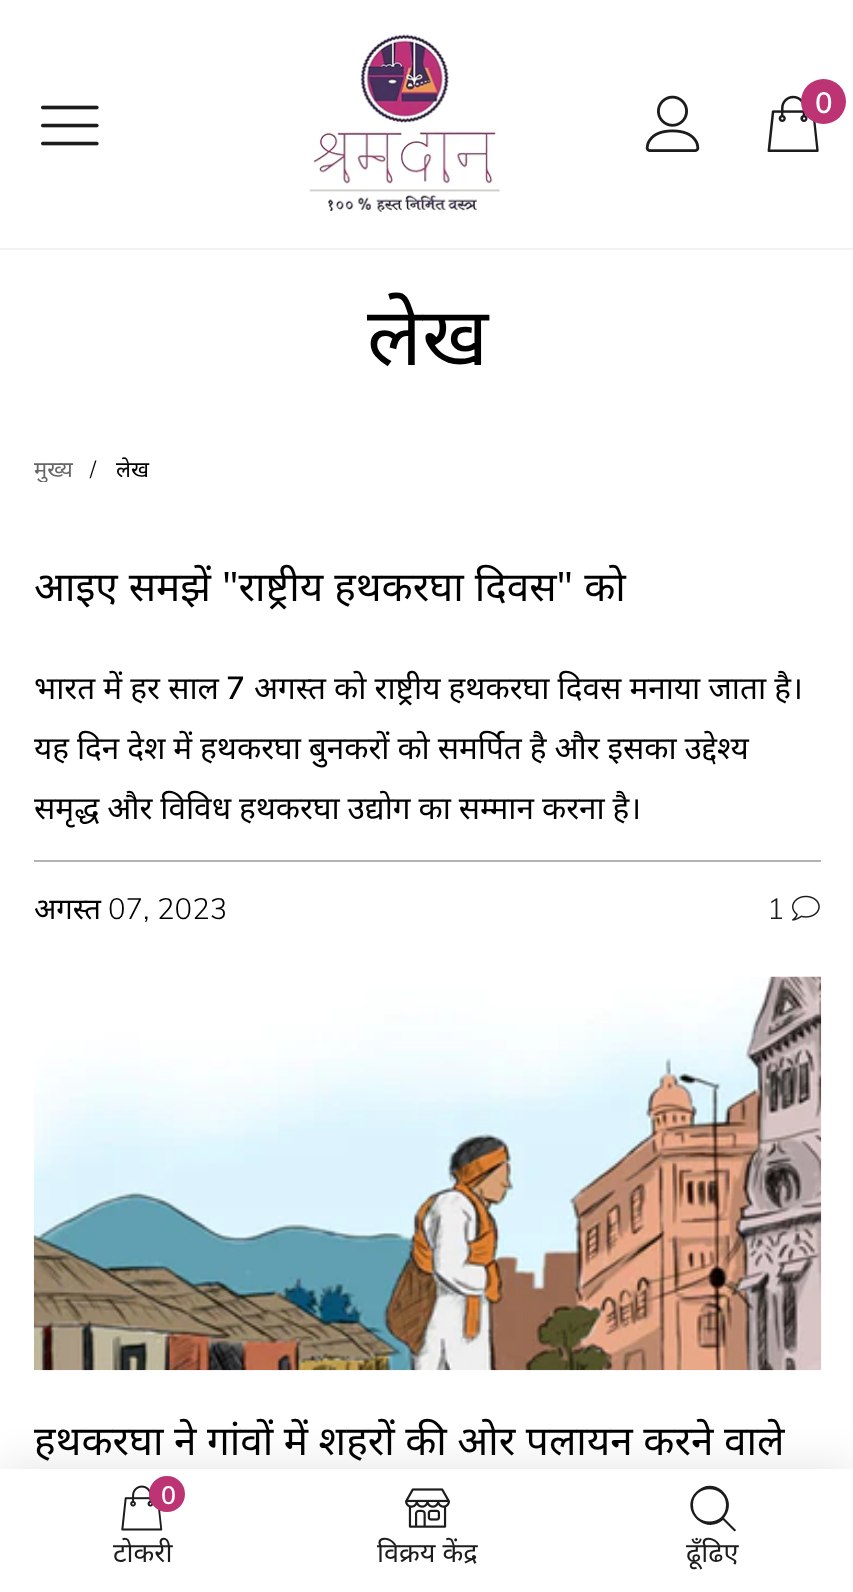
(async () => {
  const canvas = document.querySelector("canvas");
  canvas.width = 853;
  canvas.height = 1592;
  const ctx = canvas.getContext("2d");
  ctx.miterLimit = 4;
  ctx.fontKerning = "normal";
  async function loadImage(src) {
    const img = new Image();
    img.src = src;
    await img.decode();
    return img;
  }
  let path;

  ctx.fillStyle = "#ffffff";
  ctx.fillRect(0, 0, 853, 1592);
  ctx.fillStyle = "#f2f2f2";
  ctx.fillRect(0, 248, 853, 2);
  ctx.drawImage(await loadImage("img/1.png"), 309, 31, 191, 184);
  ctx.drawImage(await loadImage("img/2.png"), 645, 95, 55, 57);
  ctx.drawImage(await loadImage("img/3.png"), 767, 95, 52, 57);
  ctx.fillStyle = "#bc3474";
  ctx.beginPath();
  ctx.arc(823.5, 101.5, 22.5, 0, Math.PI * 2);
  ctx.fill();
  ctx.drawImage(await loadImage("img/4.png"), 41, 105, 58, 41);
  ctx.fillStyle = "#b3b3b3";
  ctx.fillRect(34, 860, 787, 2);
  ctx.drawImage(await loadImage("img/5.png"), 792, 895, 28, 26);
  ctx.drawImage(await loadImage("img/6.png"), 33, 976, 789, 395);
  ctx.fillStyle = "rgba(0, 0, 0, 0.1)";
  ctx.filter = "blur(21.5px)";
  ctx.beginPath();
  ctx.rect(0, 1467, 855, 124);
  ctx.fill();
  ctx.filter = "none";
  ctx.fillStyle = "#ffffff";
  ctx.fillRect(0, 1469, 853, 123);
  ctx.drawImage(await loadImage("img/7.png"), 121, 1485, 42, 46);
  ctx.fillStyle = "#bc3474";
  ctx.beginPath();
  ctx.arc(167, 1494, 18, 0, Math.PI * 2);
  ctx.fill();
  ctx.drawImage(await loadImage("img/8.png"), 405, 1488, 45, 40);
  ctx.fillStyle = "#1c1c1c";
  path = new Path2D("M735 1529L724 1518C740 1499 714 1474 696 1492C679 1509 704 1536 723 1520L734 1531C735 1532 737 1530 735 1529ZM693 1505C693 1484 726 1484 726 1505C726 1527 693 1527 693 1505Z");
  ctx.fill(path);
  ctx.font = "600 29.25px Muli";
  ctx.fillStyle = "#ffffff";
  ctx.fillText("0", 815, 113);
  ctx.font = "81px Noto Sans";
  ctx.fillStyle = "#000000";
  ctx.fillText("लेख", 367, 365);
  ctx.save();
  ctx.beginPath();
  ctx.rect(34, 455, 117, 27);
  ctx.clip();
  ctx.font = "22px Noto Sans";
  ctx.fillStyle = "#666666";
  ctx.fillText("मुख्य", 34, 477);
  ctx.restore();
  ctx.font = "300 22px Muli";
  ctx.fillText("/", 90, 477);
  ctx.font = "22px Noto Sans";
  ctx.fillText("लेख", 116, 477);
  ctx.wordSpacing = "0.5px";
  ctx.font = "40.5px Noto Sans";
  ctx.fillText("आइए समझें \"राष्ट्रीय हथकरघा दिवस\" को", 34, 601);
  ctx.wordSpacing = "0px";
  ctx.font = "31.5px Noto Sans";
  ctx.fillText("भारत में हर साल", 34, 699);
  ctx.font = "600 31.5px Muli";
  ctx.fillText("7", 226, 699);
  ctx.font = "31.5px Noto Sans";
  ctx.fillText("अगस्त", 254, 699);
  ctx.fillText("को राष्ट्रीय हथकरघा दिवस मनाया जाता है।", 334, 699);
  ctx.wordSpacing = "-0.25px";
  ctx.fillText("यह दिन देश में हथकरघा बुनकरों को समर्पित है और इसका उद्देश्य", 34, 759);
  ctx.fillText("समृद्ध और विविध हथकरघा उद्योग का सम्मान करना है।", 34, 819);
  ctx.wordSpacing = "0px";
  ctx.font = "29.25px Noto Sans";
  ctx.fillText("अगस्त", 34, 919);
  ctx.font = "300 29.25px Muli";
  ctx.fillText("07, 2023", 108, 919);
  ctx.fillStyle = "#1c1c1c";
  ctx.fillText("1", 767, 919);
  ctx.font = "40.5px Noto Sans";
  ctx.fillStyle = "#000000";
  ctx.fillText("हथकरघा ने गांवों में शहरों की ओर पलायन करने वाले", 34, 1455);
  ctx.letterSpacing = "-2px";
  ctx.font = "600 25px Muli";
  ctx.fillStyle = "#ffffff";
  ctx.fillText("0", 161, 1504);
  ctx.letterSpacing = "0px";
  ctx.font = "27px Noto Sans";
  ctx.fillStyle = "#1c1c1c";
  for (const [text, x, y] of [
    ["टोकरी", 113, 1562],
    ["विक्रय केंद्र", 377, 1562],
    ["ढूँढिए", 686, 1562],
  ]) {
    ctx.fillText(text, x, y);
  }
})();
